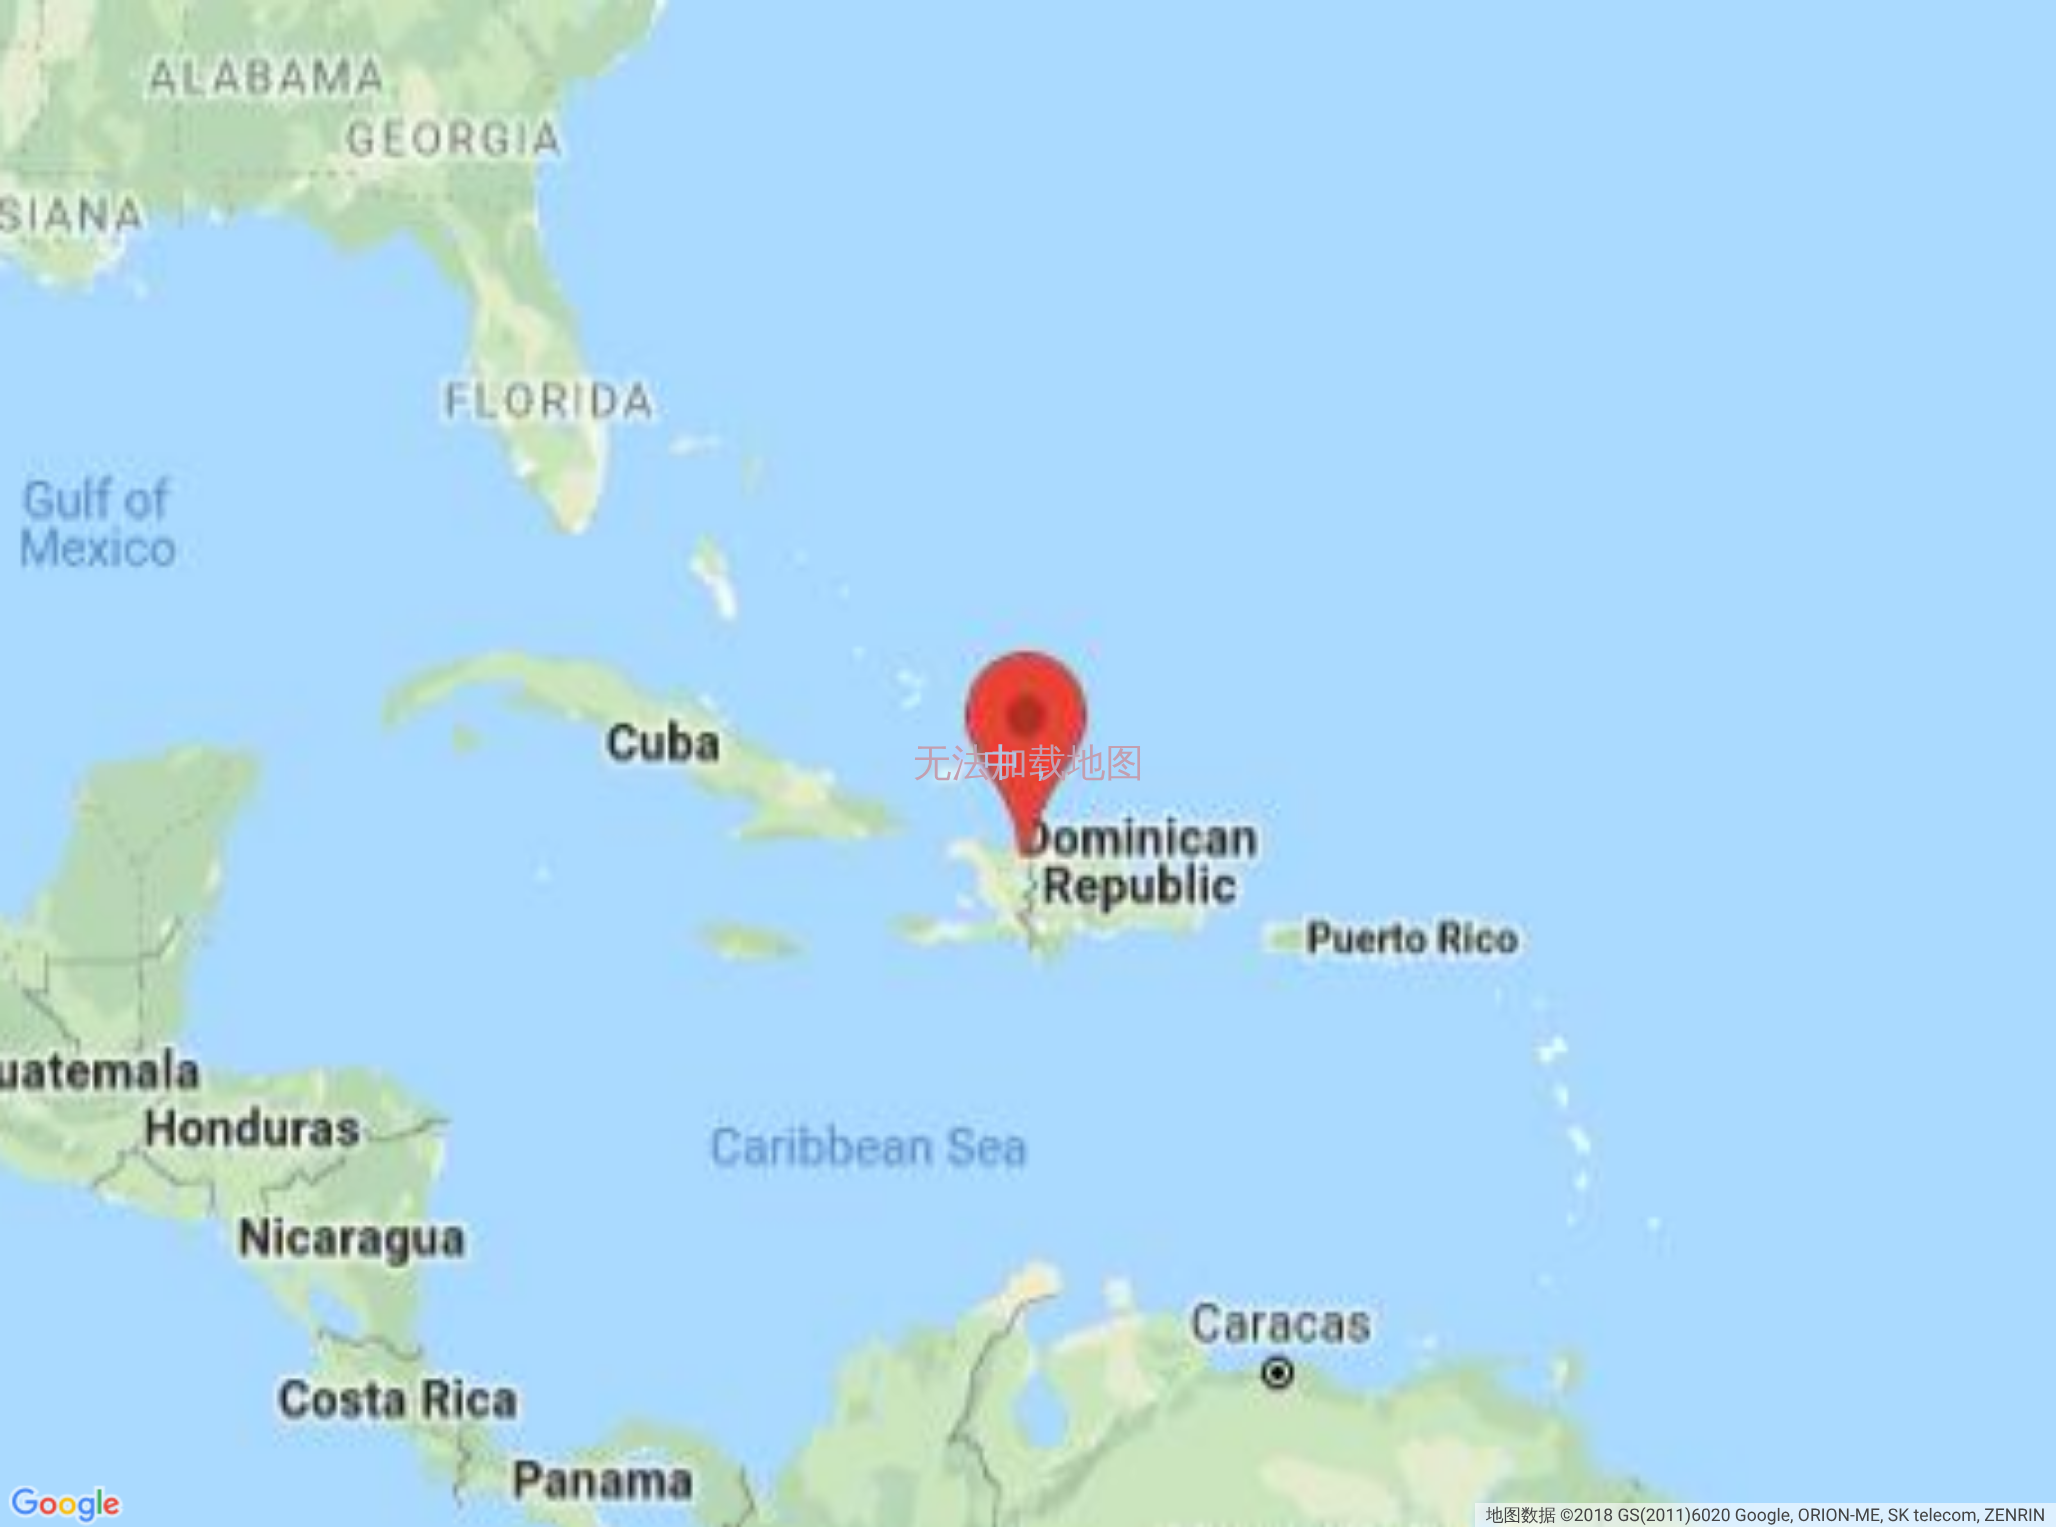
(async () => {
  const canvas = document.querySelector("canvas");
  canvas.width = 2056;
  canvas.height = 1527;
  const ctx = canvas.getContext("2d");
  ctx.miterLimit = 4;
  ctx.fontKerning = "normal";
  async function loadImage(src) {
    const img = new Image();
    img.src = src;
    await img.decode();
    return img;
  }

  ctx.fillStyle = "#ffffff";
  ctx.fillRect(0, 0, 2056, 1527);
  ctx.drawImage(await loadImage("img/1.png"), 0, 0, 2056, 1527);
  ctx.drawImage(await loadImage("img/2.png"), 8, 1485, 117, 42);
  ctx.fillStyle = "rgba(255, 255, 255, 0.6)";
  ctx.fillRect(1475, 1503, 581, 24);
  ctx.font = "500 38.5px WenQuanYi Zen Hei";
  ctx.fillStyle = "#c39fb0";
  ctx.fillText("无法加载地图", 913, 776);
  ctx.fillStyle = "#b4c3df";
  ctx.fillText("中，", 983, 776);
  ctx.font = "500 17.5px WenQuanYi Zen Hei";
  ctx.fillStyle = "#444444";
  ctx.fillText("地图数据", 1486, 1521);
  ctx.font = "17.5px Roboto";
  ctx.fillText("©2018 GS(2011)6020 Google, ORION-ME, SK telecom, ZENRIN", 1560, 1521);
})();
